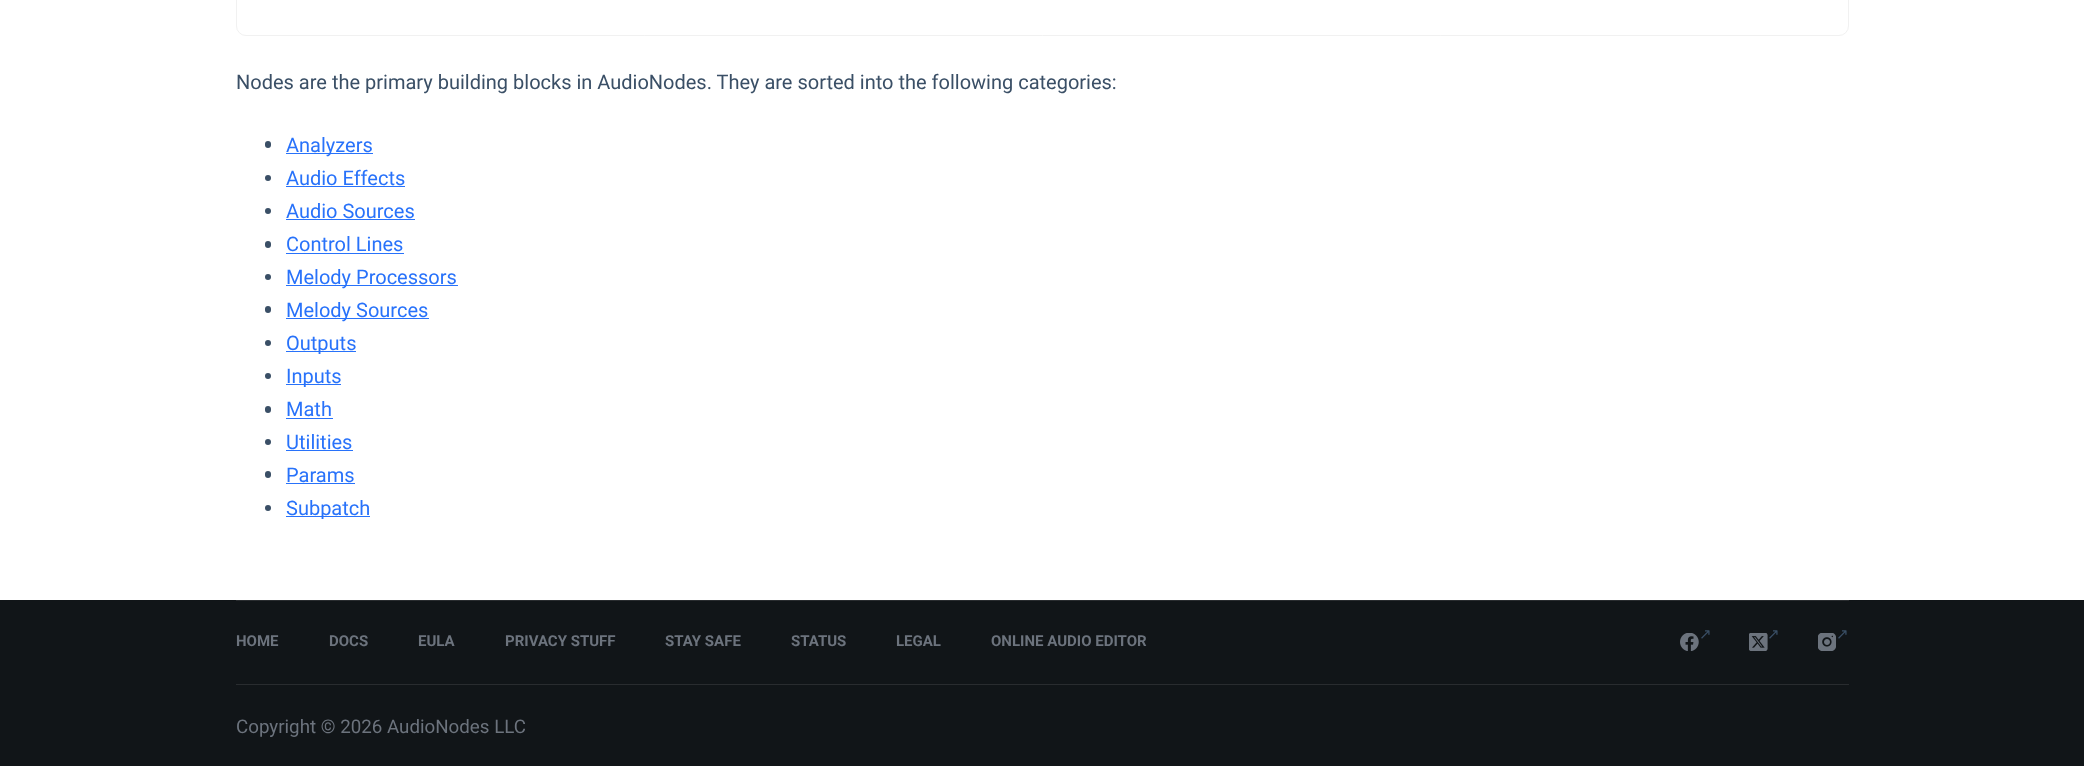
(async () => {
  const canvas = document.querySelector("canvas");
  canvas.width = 2084;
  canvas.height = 766;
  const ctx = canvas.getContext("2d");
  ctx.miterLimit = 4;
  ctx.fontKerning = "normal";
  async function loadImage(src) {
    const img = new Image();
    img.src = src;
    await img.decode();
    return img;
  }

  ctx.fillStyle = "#ffffff";
  ctx.fillRect(0, 0, 2084, 766);
  ctx.beginPath();
  ctx.roundRect(236.5, -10.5, 1612, 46, 9.5);
  ctx.strokeStyle = "#f1f1f1";
  ctx.stroke();
  ctx.fillStyle = "#3a4f66";
  ctx.beginPath();
  ctx.roundRect(265, 141, 6, 7, 3);
  ctx.fill();
  ctx.fillStyle = "#2872fa";
  ctx.fillRect(286, 153, 87, 1);
  ctx.fillStyle = "#3a4f66";
  ctx.beginPath();
  ctx.arc(268, 178, 3, 0, Math.PI * 2);
  ctx.fill();
  ctx.fillStyle = "#2872fa";
  ctx.fillRect(286, 186, 119, 1);
  ctx.fillStyle = "#3a4f66";
  ctx.beginPath();
  ctx.arc(268, 211, 3, 0, Math.PI * 2);
  ctx.fill();
  ctx.fillStyle = "#2872fa";
  ctx.fillRect(286, 219, 129, 1);
  ctx.fillStyle = "#3a4f66";
  ctx.beginPath();
  ctx.roundRect(265, 241, 6, 7, 3);
  ctx.fill();
  ctx.fillStyle = "#2872fa";
  ctx.fillRect(286, 253, 118, 1);
  ctx.fillStyle = "#3a4f66";
  ctx.beginPath();
  ctx.arc(268, 277, 3, 0, Math.PI * 2);
  ctx.fill();
  ctx.fillStyle = "#2872fa";
  ctx.fillRect(286, 285, 172, 1);
  ctx.fillStyle = "#3a4f66";
  ctx.beginPath();
  ctx.roundRect(265, 306, 6, 7, 3);
  ctx.fill();
  ctx.fillStyle = "#2872fa";
  ctx.fillRect(286, 318, 143, 1);
  ctx.fillStyle = "#3a4f66";
  ctx.beginPath();
  ctx.arc(268, 343, 3, 0, Math.PI * 2);
  ctx.fill();
  ctx.fillStyle = "#2872fa";
  ctx.fillRect(286, 351, 70, 1);
  ctx.fillStyle = "#3a4f66";
  ctx.beginPath();
  ctx.arc(268, 376, 3, 0, Math.PI * 2);
  ctx.fill();
  ctx.fillStyle = "#2872fa";
  ctx.fillRect(286, 384, 55, 1);
  ctx.fillStyle = "#3a4f66";
  ctx.beginPath();
  ctx.roundRect(265, 406, 6, 7, 3);
  ctx.fill();
  ctx.fillStyle = "#2872fa";
  ctx.fillRect(286, 418, 47, 1);
  ctx.fillStyle = "#3a4f66";
  ctx.beginPath();
  ctx.arc(268, 442, 3, 0, Math.PI * 2);
  ctx.fill();
  ctx.fillStyle = "#2872fa";
  ctx.fillRect(286, 450, 67, 1);
  ctx.fillStyle = "#3a4f66";
  ctx.beginPath();
  ctx.roundRect(265, 471, 6, 7, 3);
  ctx.fill();
  ctx.fillStyle = "#2872fa";
  ctx.fillRect(286, 483, 69, 1);
  ctx.fillStyle = "#3a4f66";
  ctx.beginPath();
  ctx.arc(268, 508, 3, 0, Math.PI * 2);
  ctx.fill();
  for (const [x, y, w, h, color] of [
    [286, 516, 84, 1, "#2872fa"],
    [0, 600, 2084, 166, "#111518"],
    [236, 600, 1613, 1, "#292c2f"],
    [236, 684, 1613, 1, "#292c2f"],
  ]) {
    ctx.fillStyle = color;
    ctx.fillRect(x, y, w, h);
  }
  ctx.drawImage(await loadImage("img/1.png"), 1680, 633, 19, 18);
  ctx.drawImage(await loadImage("img/2.png"), 1749, 633, 19, 18);
  ctx.drawImage(await loadImage("img/3.png"), 1818, 633, 18, 18);
  ctx.font = "20px Roboto";
  ctx.fillStyle = "#3a4f66";
  ctx.fillText("Nodes are the primary building blocks in AudioNodes. They are sorted into the following categories:", 236, 89);
  ctx.fillStyle = "#2872fa";
  for (const [text, x, y] of [
    ["Analyzers", 286, 152],
    ["Audio Effects", 286, 185],
    ["Audio Sources", 286, 218],
    ["Control Lines", 286, 251],
    ["Melody Processors", 286, 284],
    ["Melody Sources", 286, 317],
    ["Outputs", 286, 350],
    ["Inputs", 286, 383],
    ["Math", 286, 416],
    ["Utilities", 286, 449],
    ["Params", 286, 482],
    ["Subpatch", 286, 515],
  ]) {
    ctx.fillText(text, x, y);
  }
  ctx.font = "bold 15px Roboto";
  ctx.fillStyle = "#6c737d";
  for (const [text, x, y] of [
    ["HOME", 236, 646],
    ["DOCS", 329, 646],
    ["EULA", 418, 646],
    ["PRIVACY STUFF", 505, 646],
    ["STAY SAFE", 665, 646],
    ["STATUS", 791, 646],
    ["LEGAL", 896, 646],
    ["ONLINE AUDIO EDITOR", 991, 646],
  ]) {
    ctx.fillText(text, x, y);
  }
  ctx.font = "15px DejaVu Sans";
  ctx.fillStyle = "#3a4f66";
  for (const [text, x, y] of [
    ["↗", 1699, 639],
    ["↗", 1767, 639],
    ["↗", 1836, 639],
  ]) {
    ctx.fillText(text, x, y);
  }
  ctx.font = "18.75px Roboto";
  ctx.fillStyle = "#6c737d";
  ctx.fillText("Copyright © 2026 AudioNodes LLC", 236, 733);
})();
